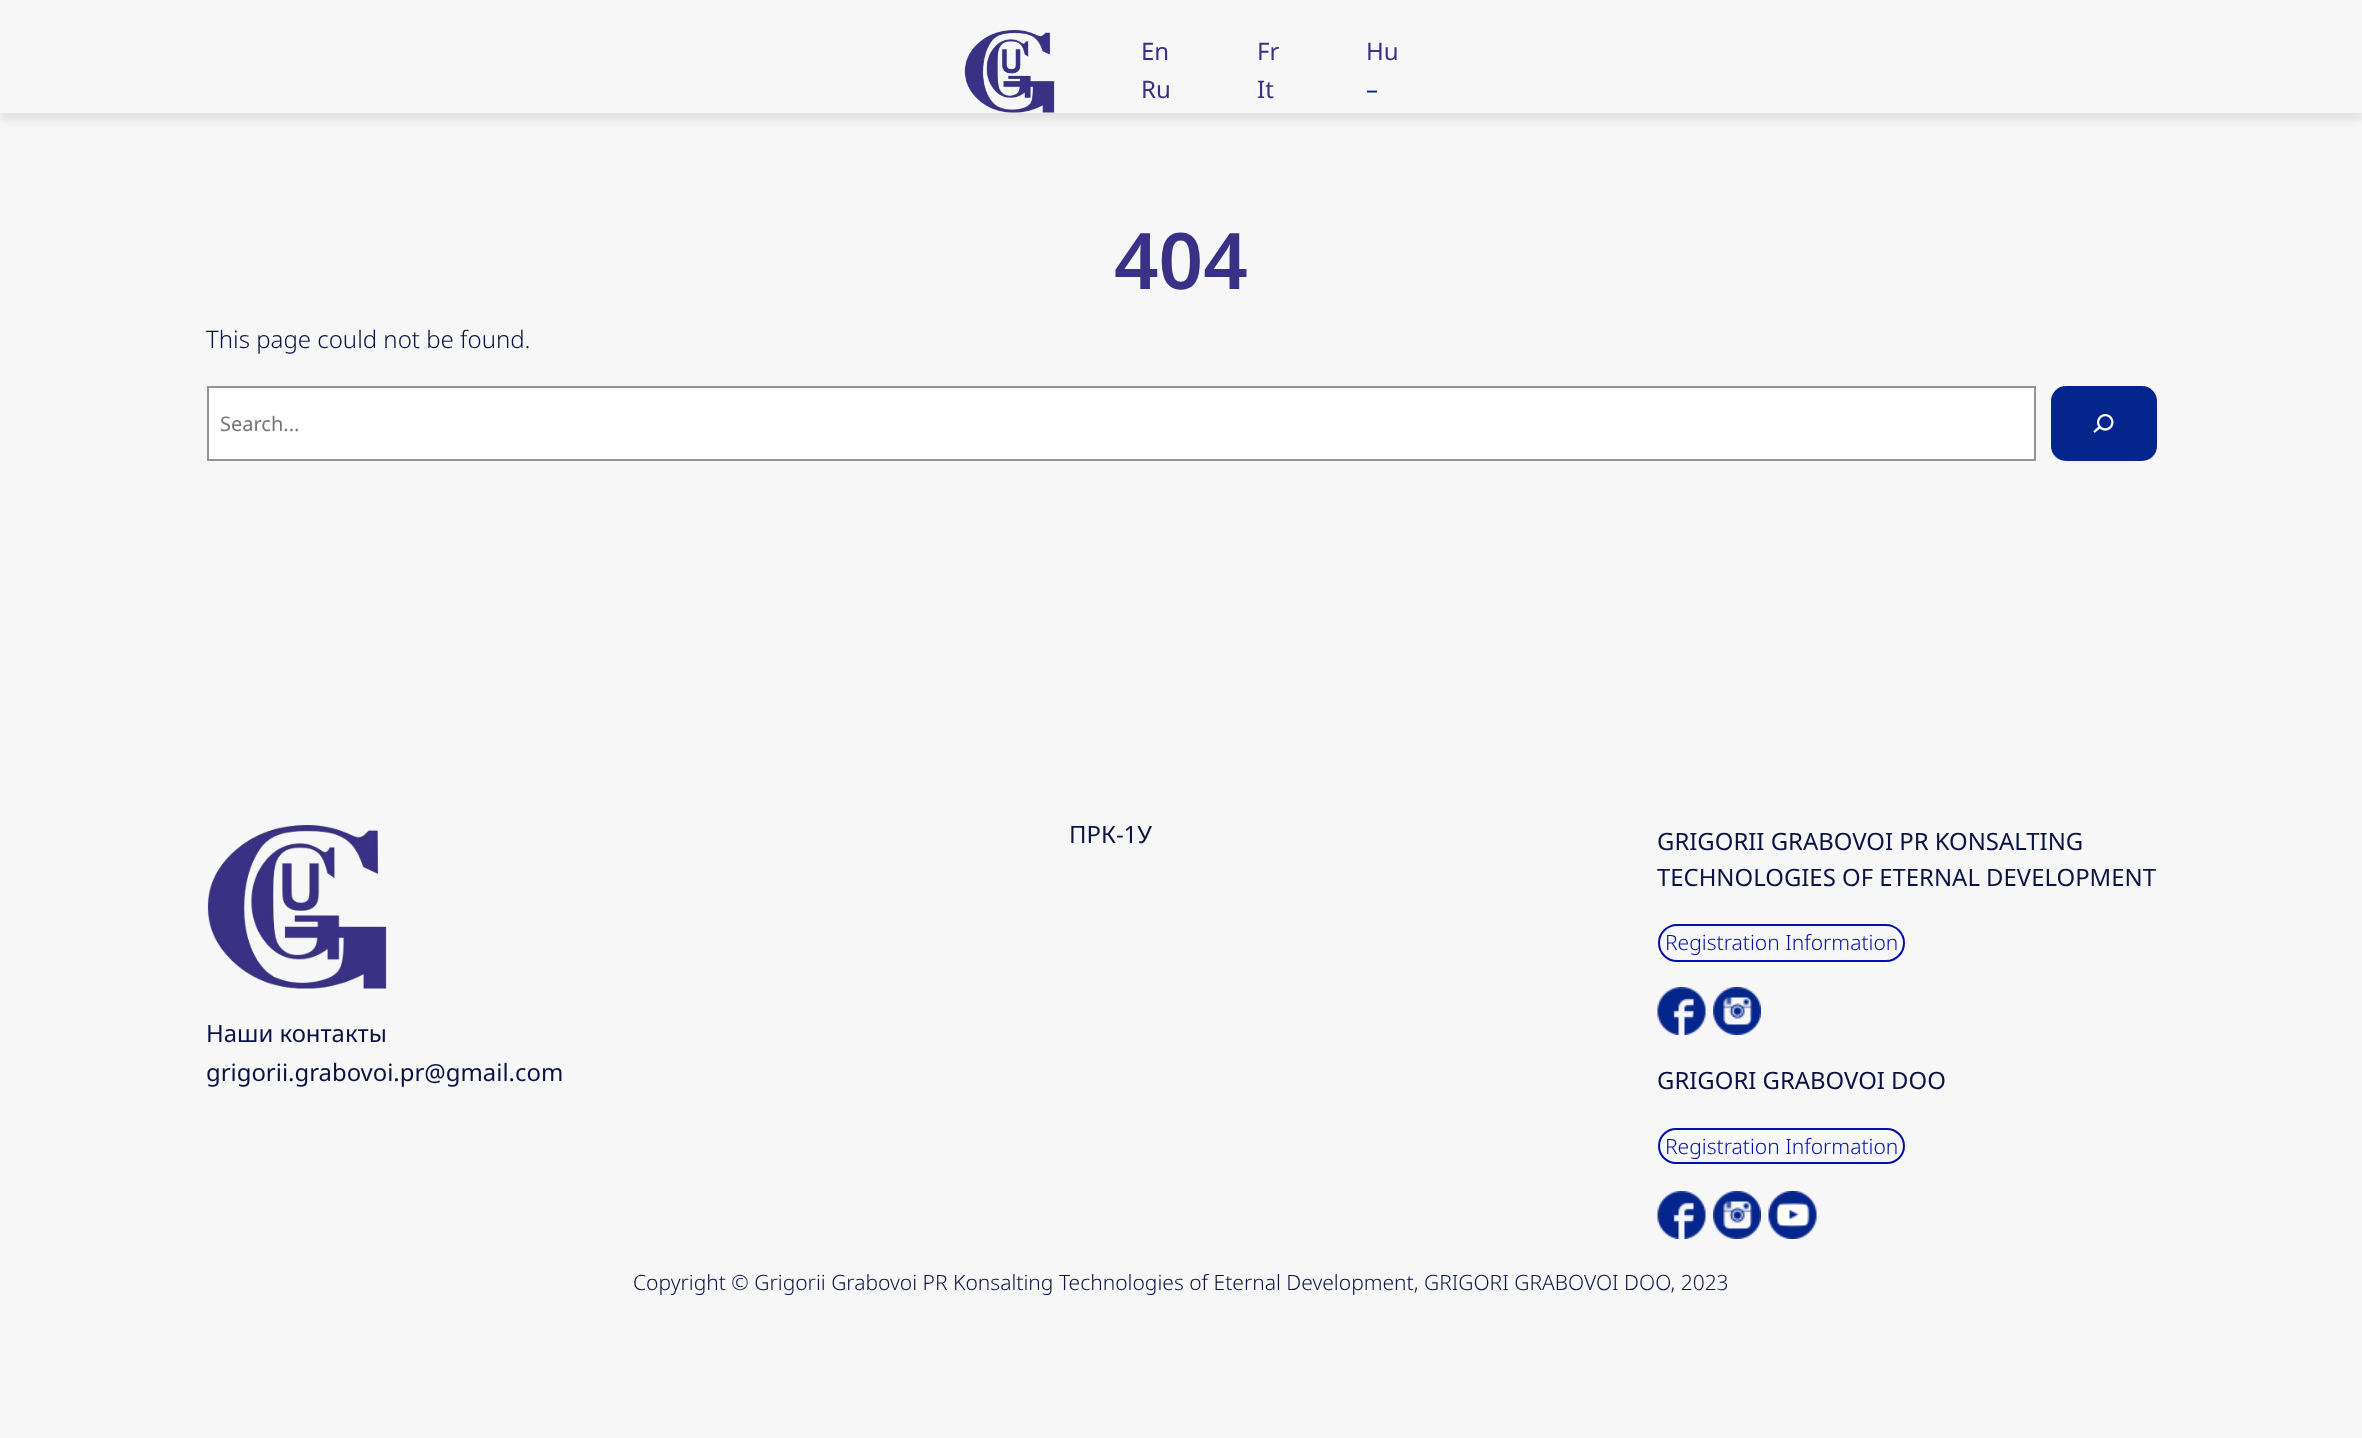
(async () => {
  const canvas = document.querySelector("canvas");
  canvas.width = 2362;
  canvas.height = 1438;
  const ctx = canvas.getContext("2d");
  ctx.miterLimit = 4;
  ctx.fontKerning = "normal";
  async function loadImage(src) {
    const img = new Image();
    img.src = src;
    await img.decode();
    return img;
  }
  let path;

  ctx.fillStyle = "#f7f7f7";
  ctx.fillRect(0, 0, 2362, 1438);
  ctx.save();
  path = new Path2D("M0 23H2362V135H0ZM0 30H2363V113H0Z");
  ctx.clip(path, "evenodd");
  ctx.fillStyle = "rgba(128, 128, 128, 0.18)";
  ctx.filter = "blur(4.5px)";
  ctx.beginPath();
  ctx.rect(0, 38, 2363, 82);
  ctx.fill();
  ctx.filter = "none";
  ctx.restore();
  ctx.drawImage(await loadImage("img/1.png"), 964, 30, 91, 83);
  ctx.fillStyle = "#ffffff";
  ctx.beginPath();
  ctx.rect(208, 387, 1827, 73);
  ctx.fill();
  ctx.strokeStyle = "#949494";
  ctx.lineWidth = 2;
  ctx.stroke();
  ctx.fillStyle = "#04268c";
  ctx.beginPath();
  ctx.roundRect(2051, 386, 106, 75, 15);
  ctx.fill();
  ctx.drawImage(await loadImage("img/2.png"), 2093, 414, 21, 19);
  ctx.drawImage(await loadImage("img/3.png"), 207, 825, 180, 164);
  ctx.beginPath();
  ctx.roundRect(1659, 925, 245, 36, 18);
  ctx.strokeStyle = "#010fb0";
  ctx.stroke();
  ctx.drawImage(await loadImage("img/4.png"), 1657, 987, 49, 48);
  ctx.drawImage(await loadImage("img/5.png"), 1713, 987, 48, 48);
  ctx.beginPath();
  ctx.roundRect(1659, 1129, 245, 34, 17);
  ctx.stroke();
  ctx.drawImage(await loadImage("img/4.png"), 1657, 1191, 49, 48);
  ctx.drawImage(await loadImage("img/5.png"), 1713, 1191, 48, 48);
  ctx.drawImage(await loadImage("img/6.png"), 1768, 1191, 49, 48);
  ctx.font = "24px Noto Sans";
  ctx.fillStyle = "#393185";
  for (const [text, x, y] of [
    ["En", 1141, 60],
    ["Ru", 1141, 98],
    ["Fr", 1257, 60],
    ["It", 1257, 98],
    ["Hu", 1366, 60],
  ]) {
    ctx.fillText(text, x, y);
  }
  ctx.fillStyle = "#04268c";
  ctx.fillText("–", 1366, 98);
  ctx.font = "600 78px Noto Sans";
  ctx.fillStyle = "#393185";
  ctx.fillText("404", 1114, 289);
  ctx.font = "300 24px Noto Sans";
  ctx.fillStyle = "#091242";
  ctx.fillText("This page could not be found.", 206, 348);
  ctx.font = "20px Noto Sans";
  ctx.fillStyle = "#757575";
  ctx.fillText("Search...", 220, 431);
  ctx.font = "23.9px Noto Sans";
  ctx.fillStyle = "#091242";
  for (const [text, x, y] of [
    ["Наши контакты", 206, 1042],
    ["grigorii.grabovoi.pr@gmail.com", 206, 1081],
    ["ПРК-1У", 1069, 843],
    ["GRIGORII GRABOVOI PR KONSALTING", 1657, 850],
    ["TECHNOLOGIES OF ETERNAL DEVELOPMENT", 1657, 886],
  ]) {
    ctx.fillText(text, x, y);
  }
  ctx.font = "300 21px Noto Sans";
  ctx.fillStyle = "#010fb0";
  ctx.fillText("Registration Information", 1665, 950);
  ctx.font = "23.9px Noto Sans";
  ctx.fillStyle = "#091242";
  ctx.fillText("GRIGORI GRABOVOI DOO", 1657, 1089);
  ctx.font = "300 21px Noto Sans";
  ctx.fillStyle = "#010fb0";
  ctx.fillText("Registration Information", 1665, 1154);
  ctx.fillStyle = "#091242";
  ctx.fillText("Copyright © Grigorii Grabovoi PR Konsalting Technologies of Eternal Development, GRIGORI GRABOVOI DOO, 2023", 633, 1290);
})();
